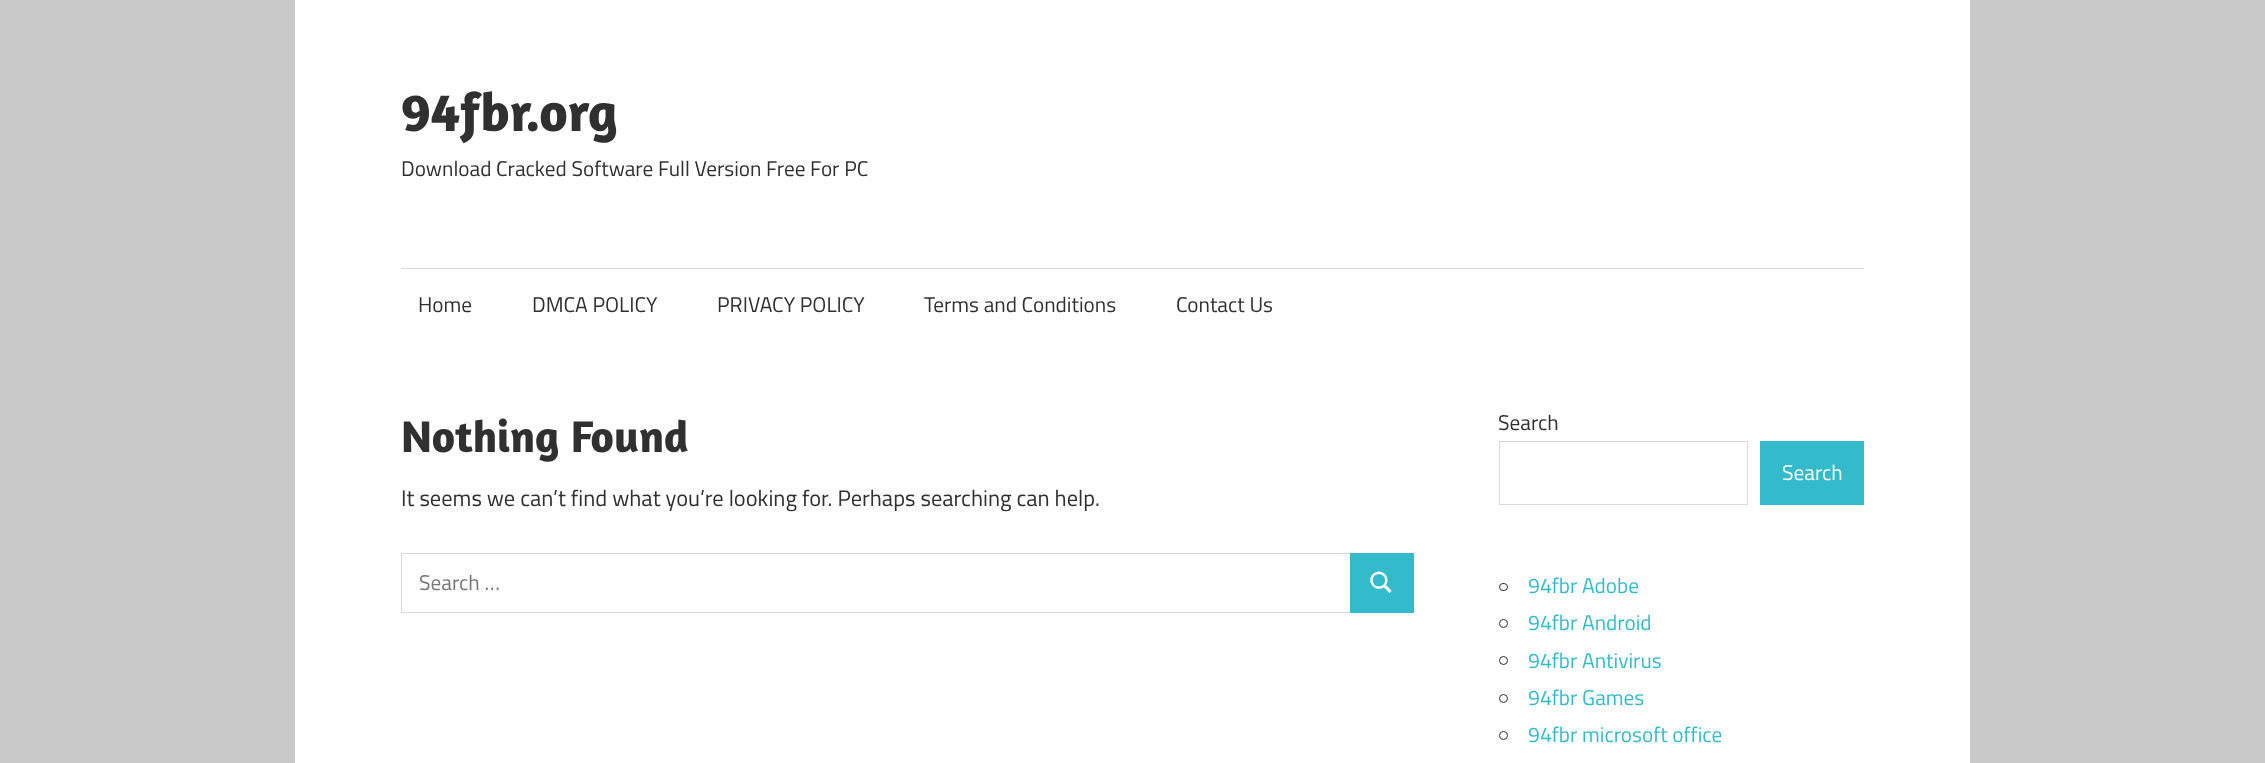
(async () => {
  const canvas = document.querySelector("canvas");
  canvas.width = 2265;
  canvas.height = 763;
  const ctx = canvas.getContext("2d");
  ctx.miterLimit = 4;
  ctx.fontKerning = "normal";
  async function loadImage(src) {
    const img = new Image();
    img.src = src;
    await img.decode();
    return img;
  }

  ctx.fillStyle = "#c9c9c9";
  ctx.fillRect(0, 0, 2265, 763);
  ctx.fillStyle = "#ffffff";
  ctx.fillRect(295, 0, 1675, 763);
  ctx.fillStyle = "#d9d9d9";
  ctx.fillRect(401, 268, 1463, 1);
  ctx.strokeStyle = "#d9d9d9";
  ctx.strokeRect(401.5, 553.5, 949, 59);
  ctx.fillStyle = "#33bbcc";
  ctx.fillRect(1350, 553, 64, 60);
  ctx.drawImage(await loadImage("img/1.png"), 1370, 571, 22, 22);
  ctx.strokeRect(1499.5, 441.5, 248, 63);
  ctx.fillRect(1760, 441, 104, 64);
  ctx.beginPath();
  ctx.roundRect(1499.5, 583.5, 8, 7, 3.5);
  ctx.strokeStyle = "#303030";
  ctx.stroke();
  ctx.beginPath();
  ctx.arc(1503.5, 623.5, 4, 0, Math.PI * 2);
  ctx.stroke();
  ctx.beginPath();
  ctx.arc(1503.5, 660.5, 4, 0, Math.PI * 2);
  ctx.stroke();
  ctx.beginPath();
  ctx.arc(1503.5, 698.5, 4, 0, Math.PI * 2);
  ctx.stroke();
  ctx.beginPath();
  ctx.arc(1503.5, 735.5, 4, 0, Math.PI * 2);
  ctx.stroke();
  ctx.font = "bold 55px Amaranth";
  ctx.fillStyle = "#303030";
  ctx.fillText("94fbr.org", 401, 131);
  ctx.font = "21.25px Titillium Web";
  for (const [text, x, y] of [
    ["Download Cracked Software Full Version Free For PC", 401, 176],
    ["Home", 418, 312],
    ["DMCA POLICY", 532, 312],
    ["PRIVACY POLICY", 717, 312],
    ["Terms and Conditions", 924, 312],
    ["Contact Us", 1176, 312],
  ]) {
    ctx.fillText(text, x, y);
  }
  ctx.font = "bold 45px Amaranth";
  ctx.fillText("Nothing Found", 401, 452);
  ctx.font = "22.5px Titillium Web";
  ctx.fillText("It seems we can’t find what you’re looking for. Perhaps searching can help.", 401, 506);
  ctx.font = "21.25px Titillium Web";
  ctx.fillStyle = "#757575";
  ctx.fillText("Search …", 419, 590);
  ctx.fillStyle = "#303030";
  ctx.fillText("Search", 1498, 430);
  ctx.fillStyle = "#ffffff";
  ctx.fillText("Search", 1782, 480);
  ctx.fillStyle = "#33bbcc";
  for (const [text, x, y] of [
    ["94fbr Adobe", 1528, 593],
    ["94fbr Android", 1528, 630],
    ["94fbr Antivirus", 1528, 668],
    ["94fbr Games", 1528, 705],
    ["94fbr microsoft office", 1528, 742],
  ]) {
    ctx.fillText(text, x, y);
  }
})();
